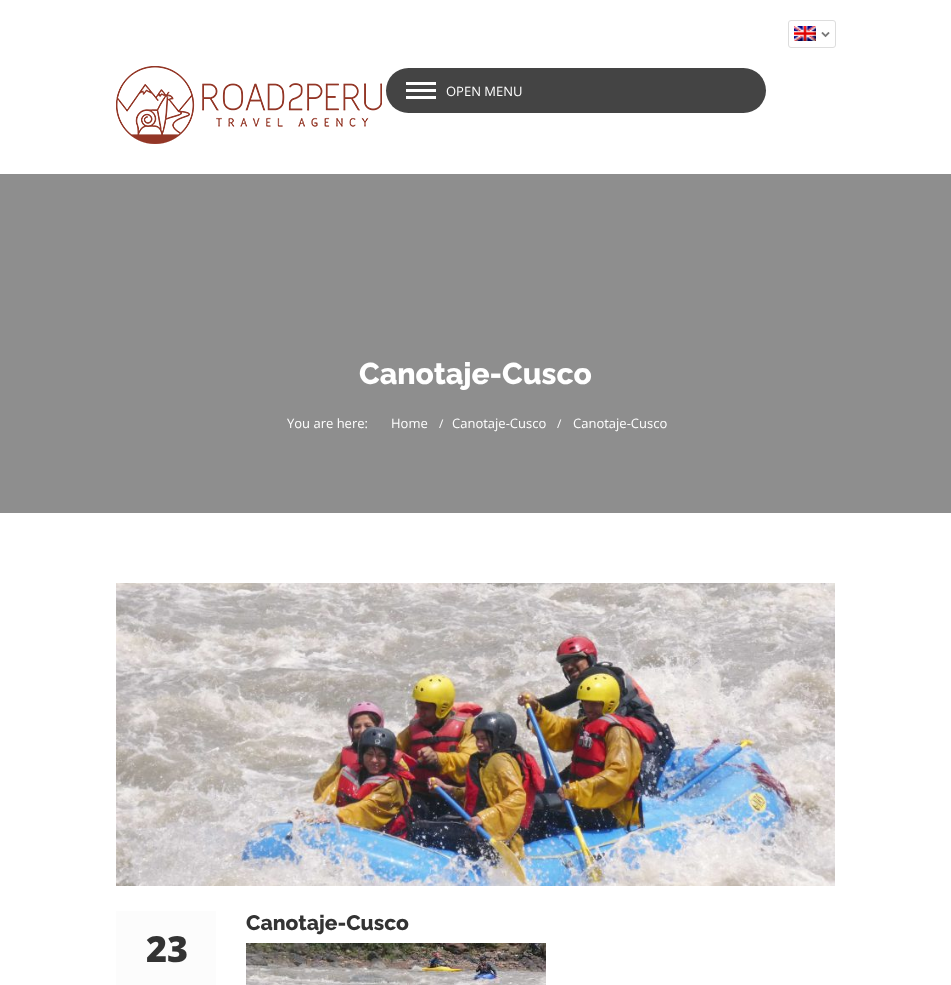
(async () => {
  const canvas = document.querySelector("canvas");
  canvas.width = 951;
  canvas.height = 985;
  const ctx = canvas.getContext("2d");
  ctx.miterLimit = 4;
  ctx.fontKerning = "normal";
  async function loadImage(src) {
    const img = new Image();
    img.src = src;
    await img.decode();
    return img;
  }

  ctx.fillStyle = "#ffffff";
  ctx.fillRect(0, 0, 951, 985);
  ctx.beginPath();
  ctx.roundRect(788.5, 20.5, 47, 27, 2.5);
  ctx.strokeStyle = "#dddddd";
  ctx.stroke();
  ctx.drawImage(await loadImage("img/1.png"), 794, 26, 22, 15);
  ctx.drawImage(await loadImage("img/2.png"), 821, 32, 9, 6);
  ctx.drawImage(await loadImage("img/3.png"), 116, 66, 266, 78);
  ctx.fillStyle = "#444444";
  ctx.beginPath();
  ctx.roundRect(386, 68, 380, 45, 22.5);
  ctx.fill();
  for (const [x, y, w, h, color] of [
    [406, 96, 30, 3, "#ffffff"],
    [406, 89, 30, 3, "#ffffff"],
    [406, 82, 30, 3, "#ffffff"],
    [0, 174, 951, 339, "#8e8e8e"],
  ]) {
    ctx.fillStyle = color;
    ctx.fillRect(x, y, w, h);
  }
  ctx.drawImage(await loadImage("img/4.png"), 116, 583, 719, 303);
  ctx.drawImage(await loadImage("img/5.png"), 246, 943, 300, 42);
  ctx.fillStyle = "#fcfcfc";
  ctx.fillRect(116, 911, 100, 74);
  ctx.font = "13px Open Sans";
  ctx.fillStyle = "#ffffff";
  ctx.fillText("OPEN MENU", 446, 96);
  ctx.font = "100 30px Raleway";
  ctx.fillText("Canotaje-Cusco", 359, 384);
  ctx.font = "13px Open Sans";
  ctx.fillText("You are here:", 287, 428);
  ctx.fillText("Home", 391, 428);
  ctx.font = "12px Open Sans";
  ctx.fillText("/", 439, 428);
  ctx.font = "13px Open Sans";
  ctx.fillText("Canotaje-Cusco", 452, 428);
  ctx.font = "12px Open Sans";
  ctx.fillText("/", 557, 428);
  ctx.font = "13px Open Sans";
  ctx.fillText("Canotaje-Cusco", 573, 428);
  ctx.font = "100 21px Raleway";
  ctx.fillStyle = "#333333";
  ctx.fillText("Canotaje-Cusco", 246, 930);
  ctx.font = "800 36px Open Sans";
  ctx.fillText("23", 146, 962);
})();
